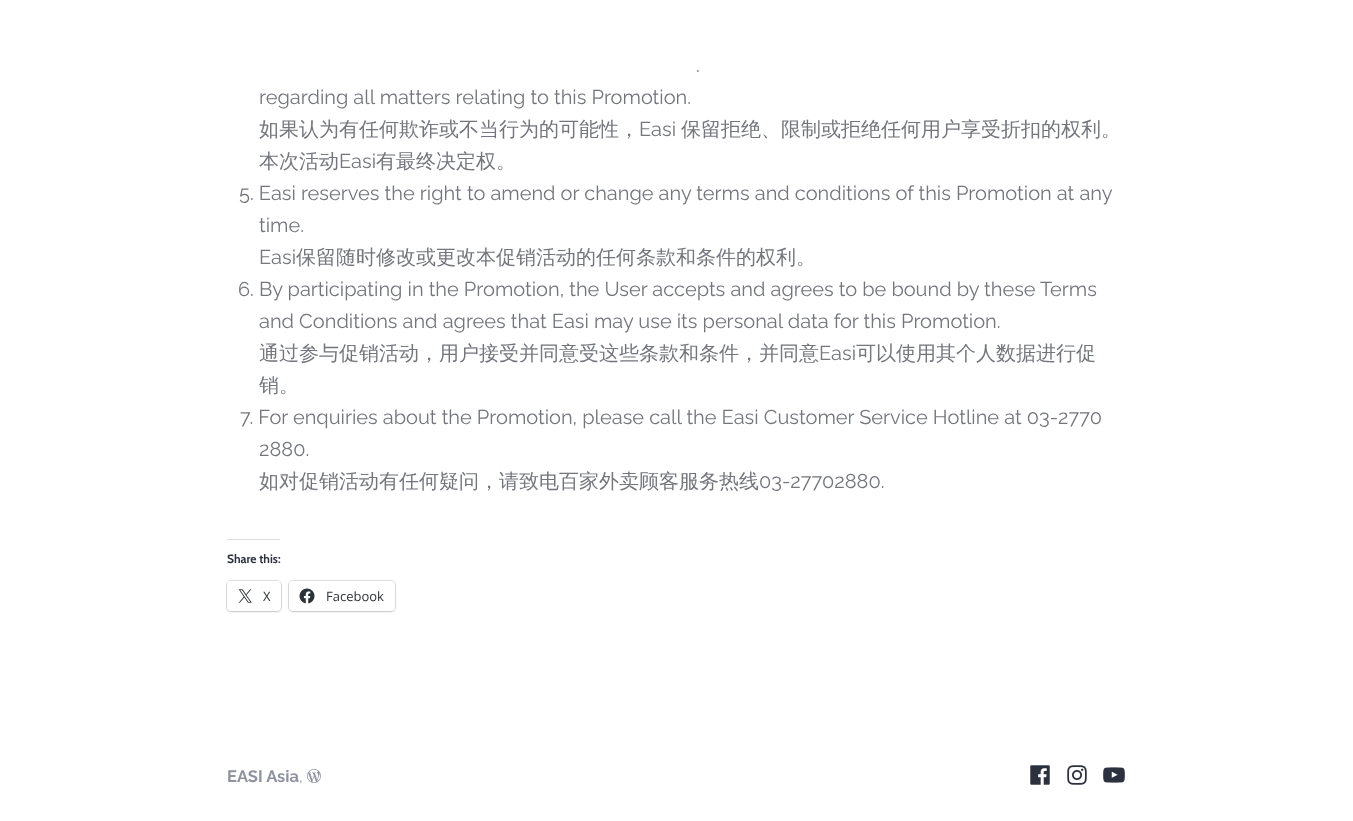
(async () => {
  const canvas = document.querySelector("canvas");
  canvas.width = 1353;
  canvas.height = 821;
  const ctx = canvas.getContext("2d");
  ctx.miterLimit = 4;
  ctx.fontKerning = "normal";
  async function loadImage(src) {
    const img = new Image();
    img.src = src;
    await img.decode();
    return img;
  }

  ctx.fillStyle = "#ffffff";
  ctx.fillRect(0, 0, 1353, 821);
  ctx.fillStyle = "#dcdcde";
  ctx.fillRect(227, 539, 53, 1);
  ctx.beginPath();
  ctx.roundRect(226.5, 580.5, 55, 31, 4.5);
  ctx.strokeStyle = "#e0e0e0";
  ctx.stroke();
  ctx.fillStyle = "rgba(0, 0, 0, 0.12)";
  ctx.filter = "blur(1px)";
  ctx.beginPath();
  ctx.roundRect(227, 582, 54, 30, 4);
  ctx.fill();
  ctx.filter = "none";
  ctx.fillStyle = "#ffffff";
  ctx.beginPath();
  ctx.roundRect(227, 581, 54, 30, 4);
  ctx.fill();
  ctx.drawImage(await loadImage("img/1.png"), 238, 589, 14, 14);
  ctx.beginPath();
  ctx.roundRect(288.5, 580.5, 107, 31, 4.5);
  ctx.stroke();
  ctx.fillStyle = "rgba(0, 0, 0, 0.12)";
  ctx.filter = "blur(1px)";
  ctx.beginPath();
  ctx.roundRect(289, 582, 106, 30, 4);
  ctx.fill();
  ctx.filter = "none";
  ctx.fillStyle = "#ffffff";
  ctx.beginPath();
  ctx.roundRect(289, 581, 106, 30, 4);
  ctx.fill();
  ctx.drawImage(await loadImage("img/2.png"), 299, 588, 16, 16);
  ctx.drawImage(await loadImage("img/3.png"), 307, 769, 14, 14);
  ctx.drawImage(await loadImage("img/4.png"), 1030, 765, 20, 20);
  ctx.drawImage(await loadImage("img/5.png"), 1067, 765, 20, 20);
  ctx.drawImage(await loadImage("img/6.png"), 1103, 767, 22, 16);
  ctx.font = "20px Raleway";
  ctx.fillStyle = "#74767e";
  ctx.fillText(".", 696, 72);
  ctx.fillText("regarding all matters relating to this Promotion.", 259, 104);
  ctx.font = "500 20px WenQuanYi Zen Hei";
  ctx.fillText("如果认为有任何欺诈或不当行为的可能性，", 259, 136);
  ctx.font = "20px Raleway";
  ctx.fillText("Easi", 639, 136);
  ctx.font = "500 20px WenQuanYi Zen Hei";
  ctx.fillText("保留拒绝、限制或拒绝任何用户享受折扣的权利。", 681, 136);
  ctx.fillText("本次活动", 259, 168);
  ctx.font = "20px Raleway";
  ctx.fillText("Easi", 339, 168);
  ctx.font = "500 20px WenQuanYi Zen Hei";
  ctx.fillText("有最终决定权。", 376, 168);
  ctx.font = "20px Raleway";
  for (const [text, x, y] of [
    ["5. Easi reserves the right to amend or change any terms and conditions of this Promotion at any", 239, 200],
    ["time.", 259, 232],
    ["Easi", 259, 264],
  ]) {
    ctx.fillText(text, x, y);
  }
  ctx.font = "500 20px WenQuanYi Zen Hei";
  ctx.fillText("保留随时修改或更改本促销活动的任何条款和条件的权利。", 296, 264);
  ctx.font = "20px Raleway";
  ctx.fillText("6. By participating in the Promotion, the User accepts and agrees to be bound by these Terms", 238, 296);
  ctx.fillText("and Conditions and agrees that Easi may use its personal data for this Promotion.", 259, 328);
  ctx.font = "500 20px WenQuanYi Zen Hei";
  ctx.fillText("通过参与促销活动，用户接受并同意受这些条款和条件，并同意", 259, 360);
  ctx.font = "20px Raleway";
  ctx.fillText("Easi", 819, 360);
  ctx.font = "500 20px WenQuanYi Zen Hei";
  ctx.fillText("可以使用其个人数据进行促", 856, 360);
  ctx.fillText("销。", 259, 392);
  ctx.font = "20px Raleway";
  ctx.fillText("7. For enquiries about the Promotion, please call the Easi Customer Service Hotline at 03-2770", 240, 424);
  ctx.fillText("2880.", 259, 456);
  ctx.font = "500 20px WenQuanYi Zen Hei";
  ctx.fillText("如对促销活动有任何疑问，请致电百家外卖顾客服务热线", 259, 488);
  ctx.font = "20px Raleway";
  ctx.fillText("03-27702880.", 759, 488);
  ctx.font = "bold 12px Cabin";
  ctx.fillStyle = "#2c313f";
  ctx.fillText("Share this:", 227, 563);
  ctx.font = "13px Open Sans";
  ctx.fillStyle = "#2c3338";
  ctx.fillText("X", 263, 601);
  ctx.fillText("Facebook", 326, 601);
  ctx.font = "bold 16.5px Raleway";
  ctx.fillStyle = "#8f93a0";
  ctx.fillText("EASI Asia", 227, 782);
  ctx.font = "16.5px Raleway";
  ctx.fillText(",", 299, 782);
})();
